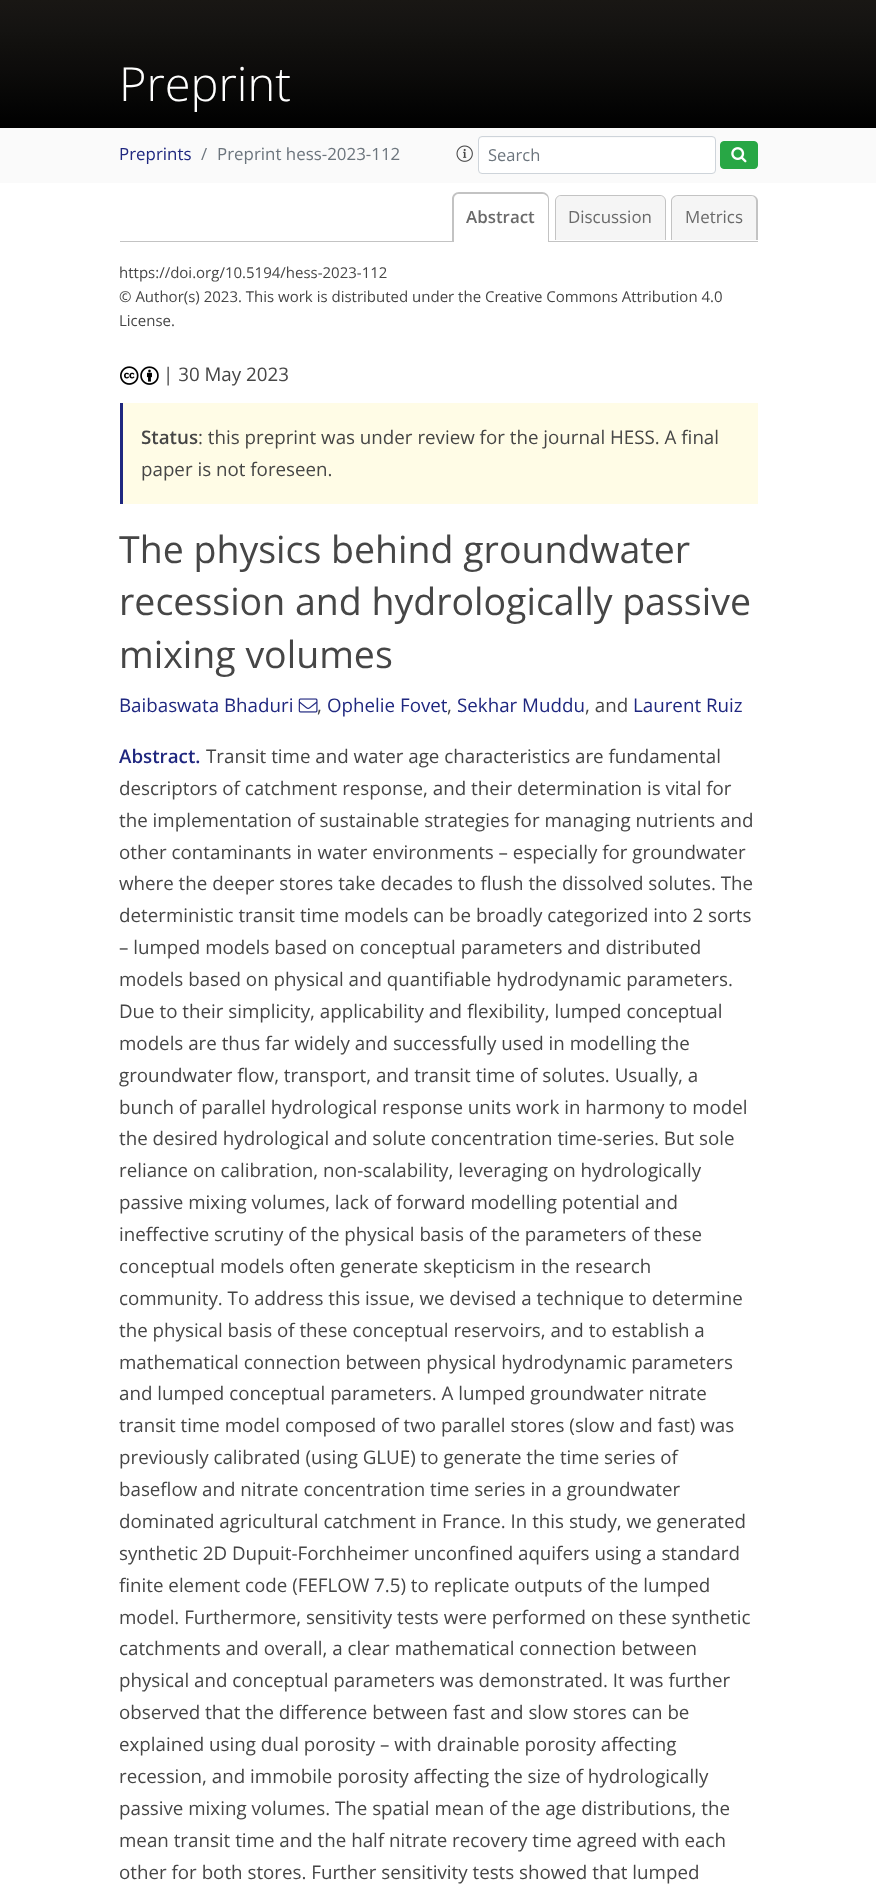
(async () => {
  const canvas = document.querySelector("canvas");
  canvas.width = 876;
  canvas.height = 1901;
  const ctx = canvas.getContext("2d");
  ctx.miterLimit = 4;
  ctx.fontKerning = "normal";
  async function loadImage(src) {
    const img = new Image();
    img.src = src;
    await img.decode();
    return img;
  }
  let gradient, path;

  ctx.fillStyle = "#ffffff";
  ctx.fillRect(0, 0, 876, 1901);
  gradient = ctx.createLinearGradient(438, 128, 438, -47);
  gradient.addColorStop(0, "#000000");
  gradient.addColorStop(0.19, "#070706");
  gradient.addColorStop(0.34, "#0d0c0b");
  gradient.addColorStop(0.47, "#11100e");
  gradient.addColorStop(0.56, "#141311");
  gradient.addColorStop(0.65, "#171513");
  gradient.addColorStop(0.73, "#191714");
  gradient.addColorStop(0.8, "#1a1815");
  gradient.addColorStop(0.86, "#1b1916");
  gradient.addColorStop(0.91, "#1b1917");
  gradient.addColorStop(0.95, "#1c1a17");
  gradient.addColorStop(1, "#1c1a17");
  ctx.fillStyle = gradient;
  ctx.fillRect(0, 0, 876, 128);
  ctx.fillStyle = "#fafafa";
  ctx.fillRect(0, 128, 876, 55);
  ctx.drawImage(await loadImage("img/1.png"), 456, 145, 17, 17);
  ctx.fillStyle = "#ffffff";
  ctx.beginPath();
  ctx.roundRect(479, 138, 236, 35, 2.5);
  ctx.fill();
  ctx.beginPath();
  ctx.roundRect(478.5, 136.5, 237, 37, 3.5);
  ctx.strokeStyle = "#ced4da";
  ctx.stroke();
  ctx.fillStyle = "#28a745";
  ctx.beginPath();
  ctx.roundRect(720.5, 141.5, 37, 27, 3.5);
  ctx.fill();
  ctx.strokeStyle = "#28a745";
  ctx.stroke();
  ctx.drawImage(await loadImage("img/2.png"), 731, 147, 16, 16);
  ctx.fillStyle = "#c3c3c3";
  ctx.fillRect(120, 241, 638, 1);
  ctx.fillStyle = "#ffffff";
  ctx.beginPath();
  ctx.roundRect(453, 193, 96, 50, [6, 6, 0, 0]);
  ctx.fill();
  ctx.fillStyle = "#c3c3c3";
  path = new Path2D("M459 192H542C546 192 549 195 549 199V242H452V199C452 195 455 192 459 192ZM459 194H542C545 194 548 196 548 199V242H454V199C454 196 456 194 459 194Z");
  ctx.fill(path, "evenodd");
  ctx.fillStyle = "#f5f5f5";
  ctx.beginPath();
  ctx.roundRect(555, 195, 111, 45, [6, 6, 0, 0]);
  ctx.fill();
  ctx.fillStyle = "#c3c3c3";
  path = new Path2D("M561 195H660C663 195 666 198 666 201V240H555V201C555 198 558 195 561 195ZM561 196H660C663 196 665 198 665 201V240H556V201C556 198 558 196 561 196Z");
  ctx.fill(path, "evenodd");
  ctx.fillStyle = "#f5f5f5";
  ctx.beginPath();
  ctx.roundRect(671, 195, 87, 45, [6, 6, 0, 0]);
  ctx.fill();
  ctx.fillStyle = "#c3c3c3";
  path = new Path2D("M678 195H751C755 195 758 198 758 201V240H671V201C671 198 674 195 678 195ZM678 196H751C754 196 756 198 756 201V240H672V201C672 198 675 196 678 196Z");
  ctx.fill(path, "evenodd");
  ctx.drawImage(await loadImage("img/3.png"), 120, 366, 39, 19);
  ctx.fillStyle = "#fffce6";
  ctx.fillRect(123, 403, 635, 101);
  ctx.fillStyle = "#1f277f";
  ctx.fillRect(120, 403, 3, 101);
  ctx.drawImage(await loadImage("img/4.png"), 298, 698, 20, 15);
  ctx.font = "300 47px Open Sans";
  ctx.fillStyle = "#ffffff";
  ctx.fillText("Preprint", 119, 101);
  ctx.font = "16.9px Open Sans";
  ctx.fillStyle = "#1f277f";
  ctx.fillText("Preprints", 119, 160);
  ctx.fillStyle = "#6c757d";
  ctx.fillText("/", 201, 160);
  ctx.fillText("Preprint hess-2023-112", 217, 160);
  ctx.font = "16.5px Open Sans";
  ctx.fillText("Search", 488, 161);
  ctx.font = "600 16.9px Open Sans";
  ctx.fillStyle = "#6a6a6a";
  ctx.fillText("Abstract", 466, 223);
  ctx.font = "16.9px Open Sans";
  ctx.fillText("Discussion", 568, 223);
  ctx.fillText("Metrics", 685, 223);
  ctx.font = "15px Open Sans";
  ctx.fillStyle = "#464646";
  for (const [text, x, y] of [
    ["https://doi.org/10.5194/hess-2023-112", 119, 278],
    ["© Author(s) 2023. This work is distributed under the Creative Commons Attribution 4.0", 119, 302],
    ["License.", 119, 326],
  ]) {
    ctx.fillText(text, x, y);
  }
  ctx.font = "18.75px Open Sans";
  ctx.fillText("| 30 May 2023", 163, 381);
  ctx.font = "600 18.75px Open Sans";
  ctx.fillText("Status", 141, 444);
  ctx.font = "18.75px Open Sans";
  ctx.fillText(": this preprint was under review for the journal HESS. A final", 198, 444);
  ctx.fillText("paper is not foreseen.", 141, 476);
  ctx.font = "37.5px Open Sans";
  for (const [text, x, y] of [
    ["The physics behind groundwater", 119, 563],
    ["recession and hydrologically passive", 119, 615],
    ["mixing volumes", 119, 668],
  ]) {
    ctx.fillText(text, x, y);
  }
  ctx.font = "18.75px Open Sans";
  ctx.fillStyle = "#1f277f";
  ctx.fillText("Baibaswata Bhaduri", 119, 712);
  ctx.fillStyle = "#464646";
  ctx.fillText(",", 317, 712);
  ctx.fillStyle = "#1f277f";
  ctx.fillText("Ophelie Fovet", 327, 712);
  ctx.fillStyle = "#464646";
  ctx.fillText(",", 447, 712);
  ctx.fillStyle = "#1f277f";
  ctx.fillText("Sekhar Muddu", 457, 712);
  ctx.fillStyle = "#464646";
  ctx.fillText(", and", 585, 712);
  ctx.fillStyle = "#1f277f";
  ctx.fillText("Laurent Ruiz", 633, 712);
  ctx.font = "600 18.75px Open Sans";
  ctx.fillText("Abstract.", 119, 763);
  ctx.font = "18.75px Open Sans";
  ctx.fillStyle = "#464646";
  for (const [text, x, y] of [
    ["Transit time and water age characteristics are fundamental", 206, 763],
    ["descriptors of catchment response, and their determination is vital for", 119, 795],
    ["the implementation of sustainable strategies for managing nutrients and", 119, 827],
    ["other contaminants in water environments – especially for groundwater", 119, 859],
    ["where the deeper stores take decades to flush the dissolved solutes. The", 119, 890],
    ["deterministic transit time models can be broadly categorized into 2 sorts", 119, 922],
    ["– lumped models based on conceptual parameters and distributed", 119, 954],
    ["models based on physical and quantifiable hydrodynamic parameters.", 119, 986],
    ["Due to their simplicity, applicability and flexibility, lumped conceptual", 119, 1018],
    ["models are thus far widely and successfully used in modelling the", 119, 1050],
    ["groundwater flow, transport, and transit time of solutes. Usually, a", 119, 1082],
    ["bunch of parallel hydrological response units work in harmony to model", 119, 1114],
    ["the desired hydrological and solute concentration time-series. But sole", 119, 1145],
    ["reliance on calibration, non-scalability, leveraging on hydrologically", 119, 1177],
    ["passive mixing volumes, lack of forward modelling potential and", 119, 1209],
    ["ineffective scrutiny of the physical basis of the parameters of these", 119, 1241],
    ["conceptual models often generate skepticism in the research", 119, 1273],
    ["community. To address this issue, we devised a technique to determine", 119, 1305],
    ["the physical basis of these conceptual reservoirs, and to establish a", 119, 1337],
    ["mathematical connection between physical hydrodynamic parameters", 119, 1369],
    ["and lumped conceptual parameters. A lumped groundwater nitrate", 119, 1400],
    ["transit time model composed of two parallel stores (slow and fast) was", 119, 1432],
    ["previously calibrated (using GLUE) to generate the time series of", 119, 1464],
    ["baseflow and nitrate concentration time series in a groundwater", 119, 1496],
    ["dominated agricultural catchment in France. In this study, we generated", 119, 1528],
    ["synthetic 2D Dupuit-Forchheimer unconfined aquifers using a standard", 119, 1560],
    ["finite element code (FEFLOW 7.5) to replicate outputs of the lumped", 119, 1592],
    ["model. Furthermore, sensitivity tests were performed on these synthetic", 119, 1624],
    ["catchments and overall, a clear mathematical connection between", 119, 1655],
    ["physical and conceptual parameters was demonstrated. It was further", 119, 1687],
    ["observed that the difference between fast and slow stores can be", 119, 1719],
    ["explained using dual porosity – with drainable porosity affecting", 119, 1751],
    ["recession, and immobile porosity affecting the size of hydrologically", 119, 1783],
    ["passive mixing volumes. The spatial mean of the age distributions, the", 119, 1815],
    ["mean transit time and the half nitrate recovery time agreed with each", 119, 1847],
    ["other for both stores. Further sensitivity tests showed that lumped", 119, 1879],
  ]) {
    ctx.fillText(text, x, y);
  }
})();
